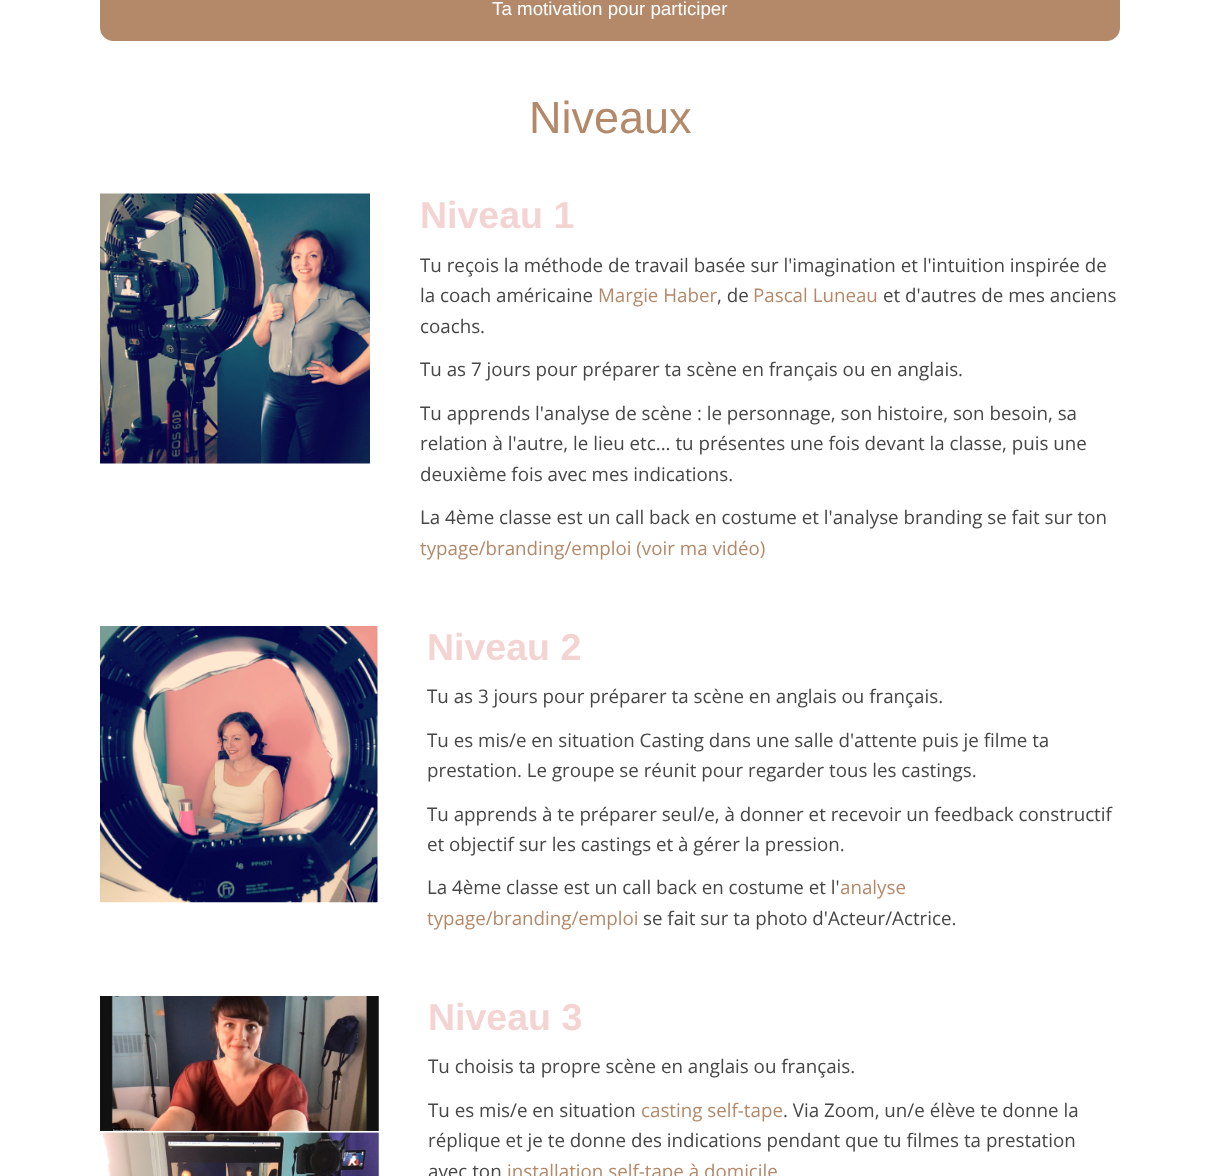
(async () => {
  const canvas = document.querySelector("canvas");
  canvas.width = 1220;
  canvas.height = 1176;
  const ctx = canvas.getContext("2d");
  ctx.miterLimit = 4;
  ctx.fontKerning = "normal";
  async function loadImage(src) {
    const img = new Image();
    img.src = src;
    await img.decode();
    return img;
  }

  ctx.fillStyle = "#ffffff";
  ctx.fillRect(0, 0, 1220, 1176);
  ctx.fillStyle = "#b4896a";
  ctx.beginPath();
  ctx.roundRect(100.5, -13.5, 1019, 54, 12.5);
  ctx.fill();
  ctx.strokeStyle = "#b4896a";
  ctx.stroke();
  ctx.drawImage(await loadImage("img/1.png"), 100, 193, 270, 271);
  ctx.drawImage(await loadImage("img/2.png"), 100, 626, 278, 277);
  ctx.drawImage(await loadImage("img/3.png"), 100, 996, 279, 180);
  ctx.font = "18.75px Liberation Sans";
  ctx.fillStyle = "#ffffff";
  ctx.fillText("Ta motivation pour participer", 492, 15);
  ctx.font = "45px Liberation Sans";
  ctx.fillStyle = "#b4896a";
  ctx.fillText("Niveaux", 529, 133);
  ctx.font = "bold 37.5px Liberation Sans";
  ctx.fillStyle = "#f4d4d3";
  ctx.fillText("Niveau 1", 420, 228);
  ctx.font = "18.75px Open Sans";
  ctx.fillStyle = "#464646";
  ctx.fillText("Tu reçois la méthode de travail basée sur l'imagination et l'intuition inspirée de", 420, 272);
  ctx.fillText("la coach américaine", 420, 302);
  ctx.fillStyle = "#b4896a";
  ctx.fillText("Margie Haber", 598, 302);
  ctx.fillStyle = "#464646";
  ctx.fillText(", de", 717, 302);
  ctx.fillStyle = "#b4896a";
  ctx.fillText("Pascal Luneau", 753, 302);
  ctx.fillStyle = "#464646";
  for (const [text, x, y] of [
    ["et d'autres de mes anciens", 883, 302],
    ["coachs.", 420, 333],
    ["Tu as 7 jours pour préparer ta scène en français ou en anglais.", 420, 376],
    ["Tu apprends l'analyse de scène : le personnage, son histoire, son besoin, sa", 420, 420],
    ["relation à l'autre, le lieu etc... tu présentes une fois devant la classe, puis une", 420, 450],
    ["deuxième fois avec mes indications.", 420, 481],
    ["La 4ème classe est un call back en costume et l'analyse branding se fait sur ton", 420, 524],
  ]) {
    ctx.fillText(text, x, y);
  }
  ctx.fillStyle = "#b4896a";
  ctx.fillText("typage/branding/emploi (voir ma vidéo)", 420, 555);
  ctx.font = "bold 37.5px Liberation Sans";
  ctx.fillStyle = "#f4d4d3";
  ctx.fillText("Niveau 2", 427, 660);
  ctx.font = "18.75px Open Sans";
  ctx.fillStyle = "#464646";
  for (const [text, x, y] of [
    ["Tu as 3 jours pour préparer ta scène en anglais ou français.", 427, 703],
    ["Tu es mis/e en situation Casting dans une salle d'attente puis je filme ta", 427, 747],
    ["prestation. Le groupe se réunit pour regarder tous les castings.", 427, 777],
    ["Tu apprends à te préparer seul/e, à donner et recevoir un feedback constructif", 427, 821],
    ["et objectif sur les castings et à gérer la pression.", 427, 851],
    ["La 4ème classe est un call back en costume et l'", 427, 894],
  ]) {
    ctx.fillText(text, x, y);
  }
  ctx.fillStyle = "#b4896a";
  ctx.fillText("analyse", 840, 894);
  ctx.fillText("typage/branding/emploi", 427, 925);
  ctx.fillStyle = "#464646";
  ctx.fillText("se fait sur ta photo d'Acteur/Actrice.", 643, 925);
  ctx.font = "bold 37.5px Liberation Sans";
  ctx.fillStyle = "#f4d4d3";
  ctx.fillText("Niveau 3", 428, 1030);
  ctx.font = "18.75px Open Sans";
  ctx.fillStyle = "#464646";
  ctx.fillText("Tu choisis ta propre scène en anglais ou français.", 428, 1073);
  ctx.fillText("Tu es mis/e en situation", 428, 1117);
  ctx.fillStyle = "#b4896a";
  ctx.fillText("casting self-tape", 641, 1117);
  ctx.fillStyle = "#464646";
  for (const [text, x, y] of [
    [". Via Zoom, un/e élève te donne la", 783, 1117],
    ["réplique et je te donne des indications pendant que tu filmes ta prestation", 428, 1147],
    ["avec ton", 428, 1178],
  ]) {
    ctx.fillText(text, x, y);
  }
  ctx.fillStyle = "#b4896a";
  ctx.fillText("installation self-tape à domicile", 507, 1178);
})();
